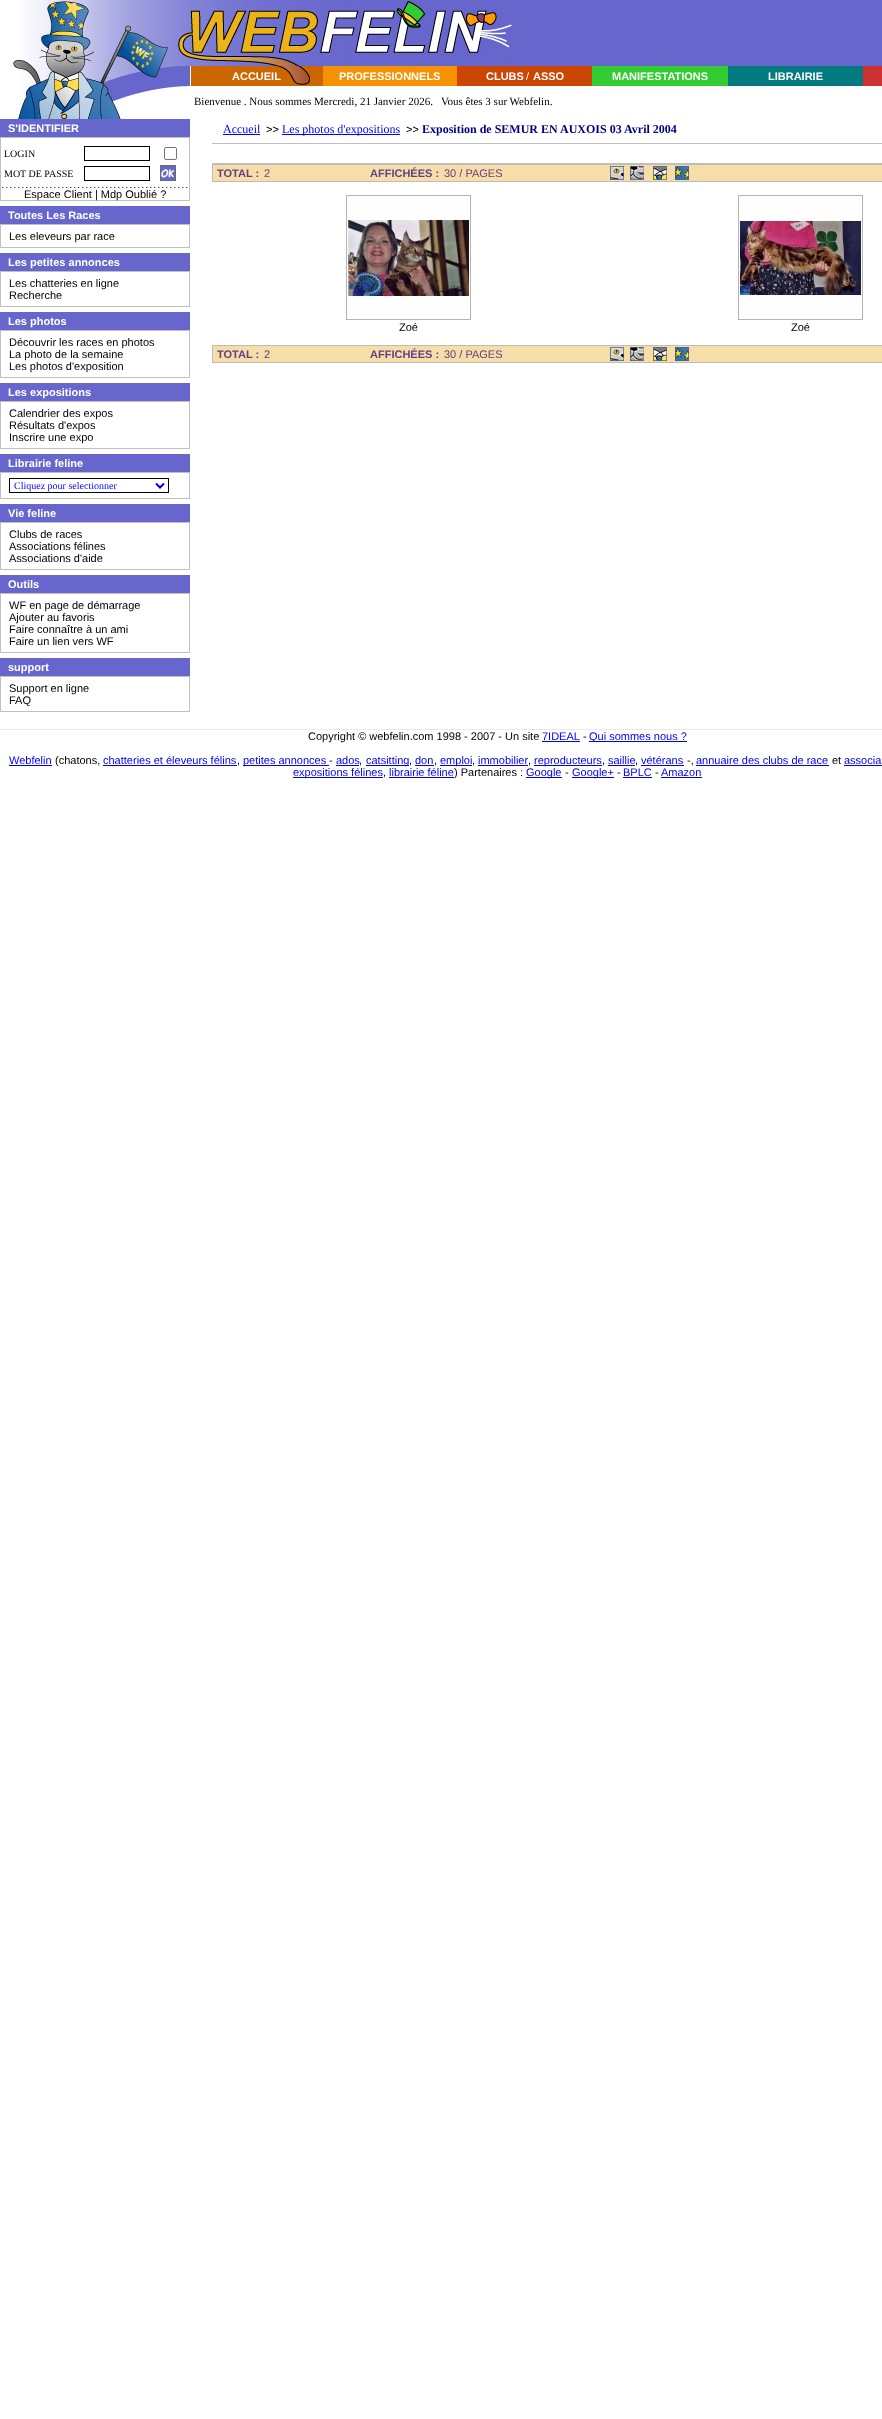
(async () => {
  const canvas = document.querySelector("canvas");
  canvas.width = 882;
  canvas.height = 2419;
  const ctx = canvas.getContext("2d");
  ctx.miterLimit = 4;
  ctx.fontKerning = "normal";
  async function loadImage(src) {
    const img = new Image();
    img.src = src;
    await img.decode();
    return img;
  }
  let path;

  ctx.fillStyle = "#ffffff";
  ctx.fillRect(0, 0, 882, 2419);
  ctx.drawImage(await loadImage("img/1.png"), 0, 0, 190, 119);
  ctx.fillStyle = "#6666cc";
  ctx.fillRect(0, 119, 190, 18);
  ctx.strokeStyle = "#c0c0c0";
  ctx.strokeRect(0.5, 137.5, 189, 63);
  ctx.strokeStyle = "#000000";
  ctx.strokeRect(84.5, 146.5, 65, 14);
  ctx.beginPath();
  ctx.roundRect(164.5, 147.5, 12, 12, 1.5);
  ctx.strokeStyle = "#767676";
  ctx.stroke();
  ctx.strokeStyle = "#000000";
  ctx.strokeRect(84.5, 166.5, 65, 14);
  ctx.drawImage(await loadImage("img/2.png"), 160, 165, 16, 16);
  ctx.drawImage(await loadImage("img/3.png"), 2, 187, 186, 1);
  ctx.fillRect(0, 206, 190, 18);
  ctx.strokeStyle = "#c0c0c0";
  ctx.strokeRect(0.5, 224.5, 189, 23);
  ctx.fillRect(0, 253, 190, 18);
  ctx.strokeRect(0.5, 271.5, 189, 35);
  ctx.fillRect(0, 312, 190, 18);
  ctx.strokeRect(0.5, 330.5, 189, 47);
  ctx.fillRect(0, 383, 190, 18);
  ctx.strokeRect(0.5, 401.5, 189, 47);
  ctx.fillRect(0, 454, 190, 18);
  ctx.strokeRect(0.5, 472.5, 189, 26);
  ctx.strokeStyle = "#000000";
  ctx.strokeRect(9.5, 478.5, 159, 14);
  path = new Path2D("M156 483.5L160 487.5L164 483.5");
  ctx.strokeStyle = "#0000ff";
  ctx.lineWidth = 2;
  ctx.stroke(path);
  ctx.fillRect(0, 504, 190, 18);
  ctx.strokeStyle = "#c0c0c0";
  ctx.lineWidth = 1;
  ctx.strokeRect(0.5, 522.5, 189, 47);
  ctx.fillRect(0, 575, 190, 18);
  ctx.strokeRect(0.5, 593.5, 189, 59);
  ctx.fillRect(0, 658, 190, 18);
  ctx.strokeRect(0.5, 676.5, 189, 35);
  ctx.fillRect(512, 0, 370, 66);
  ctx.drawImage(await loadImage("img/4.png"), 190, 0, 322, 66);
  ctx.drawImage(await loadImage("img/5.png"), 191, 66, 132, 20);
  for (const [x, y, w, h, color] of [
    [323, 66, 134, 20, "#f59102"],
    [457, 66, 135, 20, "#cc4603"],
    [592, 66, 136, 20, "#33cc33"],
    [728, 66, 135, 20, "#037980"],
    [863, 66, 19, 20, "#ce3131"],
    [212, 143, 670, 1, "#c0c0c0"],
    [223, 134, 37, 1, "#0000ff"],
    [282, 134, 118, 1, "#0000ff"],
    [212, 163, 670, 1, "#c0c0c0"],
    [213, 165, 669, 16, "#f7dea8"],
  ]) {
    ctx.fillStyle = color;
    ctx.fillRect(x, y, w, h);
  }
  ctx.drawImage(await loadImage("img/6.png"), 212, 164, 670, 18);
  ctx.drawImage(await loadImage("img/7.png"), 346, 195, 125, 125);
  ctx.drawImage(await loadImage("img/8.png"), 738, 195, 125, 125);
  ctx.fillRect(213, 346, 669, 16);
  ctx.drawImage(await loadImage("img/6.png"), 212, 345, 670, 18);
  for (const [x, y, w, h, color] of [
    [0, 729, 882, 1, "#eaeaea"],
    [542, 741, 38, 1, "#0000ee"],
    [589, 741, 98, 1, "#0000ee"],
    [9, 765, 43, 1, "#0000ee"],
    [103, 765, 134, 1, "#0000ee"],
    [243, 765, 86, 1, "#0000ee"],
    [336, 765, 23, 1, "#0000ee"],
    [366, 765, 43, 1, "#0000ee"],
    [415, 765, 19, 1, "#0000ee"],
    [440, 765, 32, 1, "#0000ee"],
    [478, 765, 50, 1, "#0000ee"],
    [534, 765, 68, 1, "#0000ee"],
    [608, 765, 27, 1, "#0000ee"],
    [641, 765, 43, 1, "#0000ee"],
    [696, 765, 133, 1, "#0000ee"],
    [844, 765, 38, 1, "#0000ee"],
    [293, 777, 90, 1, "#0000ee"],
    [389, 777, 65, 1, "#0000ee"],
    [526, 777, 36, 1, "#0000ee"],
    [572, 777, 42, 1, "#0000ee"],
    [623, 777, 29, 1, "#0000ee"],
    [661, 777, 41, 1, "#0000ee"],
  ]) {
    ctx.fillStyle = color;
    ctx.fillRect(x, y, w, h);
  }
  ctx.font = "bold 11px Liberation Sans";
  ctx.fillStyle = "#ffffff";
  ctx.fillText("S'IDENTIFIER", 8, 132);
  ctx.font = "10px Liberation Serif";
  ctx.fillStyle = "#000000";
  ctx.fillText("LOGIN", 4, 157);
  ctx.fillText("MOT DE PASSE", 4, 177);
  ctx.font = "11px Liberation Sans";
  ctx.fillText("Espace Client | Mdp Oublié ?", 24, 198);
  ctx.font = "bold 11px Liberation Sans";
  ctx.fillStyle = "#ffffff";
  ctx.fillText("Toutes Les Races", 8, 219);
  ctx.font = "11px Liberation Sans";
  ctx.fillStyle = "#000000";
  ctx.fillText("Les eleveurs par race", 9, 240);
  ctx.font = "bold 11px Liberation Sans";
  ctx.fillStyle = "#ffffff";
  ctx.fillText("Les petites annonces", 8, 266);
  ctx.font = "11px Liberation Sans";
  ctx.fillStyle = "#000000";
  ctx.fillText("Les chatteries en ligne", 9, 287);
  ctx.fillText("Recherche", 9, 299);
  ctx.font = "bold 11px Liberation Sans";
  ctx.fillStyle = "#ffffff";
  ctx.fillText("Les photos", 8, 325);
  ctx.font = "11px Liberation Sans";
  ctx.fillStyle = "#000000";
  for (const [text, x, y] of [
    ["Découvrir les races en photos", 9, 346],
    ["La photo de la semaine", 9, 358],
    ["Les photos d'exposition", 9, 370],
  ]) {
    ctx.fillText(text, x, y);
  }
  ctx.font = "bold 11px Liberation Sans";
  ctx.fillStyle = "#ffffff";
  ctx.fillText("Les expositions", 8, 396);
  ctx.font = "11px Liberation Sans";
  ctx.fillStyle = "#000000";
  for (const [text, x, y] of [
    ["Calendrier des expos", 9, 417],
    ["Résultats d'expos", 9, 429],
    ["Inscrire une expo", 9, 441],
  ]) {
    ctx.fillText(text, x, y);
  }
  ctx.font = "bold 11px Liberation Sans";
  ctx.fillStyle = "#ffffff";
  ctx.fillText("Librairie feline", 8, 467);
  ctx.font = "10px Liberation Serif";
  ctx.fillStyle = "#0000ff";
  ctx.fillText("Cliquez pour selectionner", 14, 489);
  ctx.font = "bold 11px Liberation Sans";
  ctx.fillStyle = "#ffffff";
  ctx.fillText("Vie feline", 8, 517);
  ctx.font = "11px Liberation Sans";
  ctx.fillStyle = "#000000";
  for (const [text, x, y] of [
    ["Clubs de races", 9, 538],
    ["Associations félines", 9, 550],
    ["Associations d'aide", 9, 562],
  ]) {
    ctx.fillText(text, x, y);
  }
  ctx.font = "bold 11px Liberation Sans";
  ctx.fillStyle = "#ffffff";
  ctx.fillText("Outils", 8, 588);
  ctx.font = "11px Liberation Sans";
  ctx.fillStyle = "#000000";
  for (const [text, x, y] of [
    ["WF en page de démarrage", 9, 609],
    ["Ajouter au favoris", 9, 621],
    ["Faire connaître à un ami", 9, 633],
    ["Faire un lien vers WF", 9, 645],
  ]) {
    ctx.fillText(text, x, y);
  }
  ctx.font = "bold 11px Liberation Sans";
  ctx.fillStyle = "#ffffff";
  ctx.fillText("support", 8, 671);
  ctx.font = "11px Liberation Sans";
  ctx.fillStyle = "#000000";
  ctx.fillText("Support en ligne", 9, 692);
  ctx.fillText("FAQ", 9, 704);
  ctx.font = "bold 11px Liberation Sans";
  ctx.fillStyle = "#ffffff";
  for (const [text, x, y] of [
    ["ACCUEIL", 232, 80],
    ["PROFESSIONNELS", 339, 80],
    ["CLUBS", 486, 80],
  ]) {
    ctx.fillText(text, x, y);
  }
  ctx.font = "11px Liberation Sans";
  ctx.fillText("/", 526, 80);
  ctx.font = "bold 11px Liberation Sans";
  for (const [text, x, y] of [
    ["ASSO", 533, 80],
    ["MANIFESTATIONS", 612, 80],
    ["LIBRAIRIE", 768, 80],
  ]) {
    ctx.fillText(text, x, y);
  }
  ctx.font = "11px Liberation Serif";
  ctx.fillStyle = "#000000";
  ctx.fillText("Bienvenue . Nous sommes Mercredi, 21 Janvier 2026.   Vous êtes 3 sur Webfelin.", 194, 105);
  ctx.font = "12px Liberation Serif";
  ctx.fillStyle = "#0000ff";
  ctx.fillText("Accueil", 223, 133);
  ctx.font = "11px Liberation Sans";
  ctx.fillStyle = "#000000";
  ctx.fillText(">>", 266, 133);
  ctx.font = "12px Liberation Serif";
  ctx.fillStyle = "#0000ff";
  ctx.fillText("Les photos d'expositions", 282, 133);
  ctx.font = "11px Liberation Sans";
  ctx.fillStyle = "#000000";
  ctx.fillText(">>", 406, 133);
  ctx.font = "bold 12px Liberation Serif";
  ctx.fillStyle = "#000080";
  ctx.fillText("Exposition de SEMUR EN AUXOIS 03 Avril 2004", 422, 133);
  ctx.font = "bold 11px Liberation Sans";
  ctx.fillStyle = "#614086";
  ctx.fillText("TOTAL :", 217, 177);
  ctx.font = "11px Liberation Sans";
  ctx.fillText("2", 264, 177);
  ctx.font = "bold 11px Liberation Sans";
  ctx.fillText("AFFICHÉES :", 370, 177);
  ctx.font = "11px Liberation Sans";
  ctx.fillText("30 / PAGES", 444, 177);
  ctx.fillStyle = "#000000";
  ctx.fillText("Zoé", 399, 331);
  ctx.fillText("Zoé", 791, 331);
  ctx.font = "bold 11px Liberation Sans";
  ctx.fillStyle = "#614086";
  ctx.fillText("TOTAL :", 217, 358);
  ctx.font = "11px Liberation Sans";
  ctx.fillText("2", 264, 358);
  ctx.font = "bold 11px Liberation Sans";
  ctx.fillText("AFFICHÉES :", 370, 358);
  ctx.font = "11px Liberation Sans";
  ctx.fillText("30 / PAGES", 444, 358);
  ctx.fillStyle = "#000000";
  ctx.fillText("Copyright © webfelin.com 1998 - 2007 - Un site", 308, 740);
  ctx.fillStyle = "#0000ee";
  ctx.fillText("7IDEAL", 542, 740);
  ctx.fillStyle = "#000000";
  ctx.fillText("-", 583, 740);
  ctx.fillStyle = "#0000ee";
  ctx.fillText("Qui sommes nous ?", 589, 740);
  ctx.fillText("Webfelin", 9, 764);
  ctx.fillStyle = "#000000";
  ctx.fillText("(chatons,", 55, 764);
  ctx.fillStyle = "#0000ee";
  ctx.fillText("chatteries et éleveurs félins", 103, 764);
  ctx.fillStyle = "#000000";
  ctx.fillText(",", 237, 764);
  ctx.fillStyle = "#0000ee";
  ctx.fillText("petites annonces", 243, 764);
  ctx.fillStyle = "#000000";
  ctx.fillText("-", 329, 764);
  ctx.fillStyle = "#0000ee";
  ctx.fillText("ados", 336, 764);
  ctx.fillStyle = "#000000";
  ctx.fillText(",", 359, 764);
  ctx.fillStyle = "#0000ee";
  ctx.fillText("catsitting", 366, 764);
  ctx.fillStyle = "#000000";
  ctx.fillText(",", 409, 764);
  ctx.fillStyle = "#0000ee";
  ctx.fillText("don", 415, 764);
  ctx.fillStyle = "#000000";
  ctx.fillText(",", 434, 764);
  ctx.fillStyle = "#0000ee";
  ctx.fillText("emploi", 440, 764);
  ctx.fillStyle = "#000000";
  ctx.fillText(",", 472, 764);
  ctx.fillStyle = "#0000ee";
  for (const [text, x, y] of [
    ["immobilier", 478, 764],
    ["reproducteurs", 534, 764],
    ["saillie", 608, 764],
    ["vétérans", 641, 764],
  ]) {
    ctx.fillText(text, x, y);
  }
  ctx.fillStyle = "#000000";
  ctx.fillText("-,", 687, 764);
  ctx.fillStyle = "#0000ee";
  ctx.fillText("annuaire des clubs de race", 696, 764);
  ctx.fillStyle = "#000000";
  ctx.fillText("et", 832, 764);
  ctx.fillStyle = "#0000ee";
  ctx.fillText("associa", 844, 764);
  ctx.fillStyle = "#000000";
  for (const [text, x, y] of [
    [",", 528, 764],
    [",", 602, 764],
    [",", 635, 764],
  ]) {
    ctx.fillText(text, x, y);
  }
  ctx.fillStyle = "#0000ee";
  ctx.fillText("expositions félines", 293, 776);
  ctx.fillText("librairie féline", 389, 776);
  ctx.fillStyle = "#000000";
  ctx.fillText(") Partenaires :", 454, 776);
  ctx.fillStyle = "#0000ee";
  ctx.fillText("Google", 526, 776);
  ctx.fillStyle = "#000000";
  ctx.fillText("-", 565, 776);
  ctx.fillStyle = "#0000ee";
  ctx.fillText("Google+", 572, 776);
  ctx.fillStyle = "#000000";
  ctx.fillText("-", 617, 776);
  ctx.fillStyle = "#0000ee";
  ctx.fillText("BPLC", 623, 776);
  ctx.fillStyle = "#000000";
  ctx.fillText("-", 655, 776);
  ctx.fillStyle = "#0000ee";
  ctx.fillText("Amazon", 661, 776);
  ctx.fillStyle = "#000000";
  ctx.fillText(",", 383, 776);
})();
